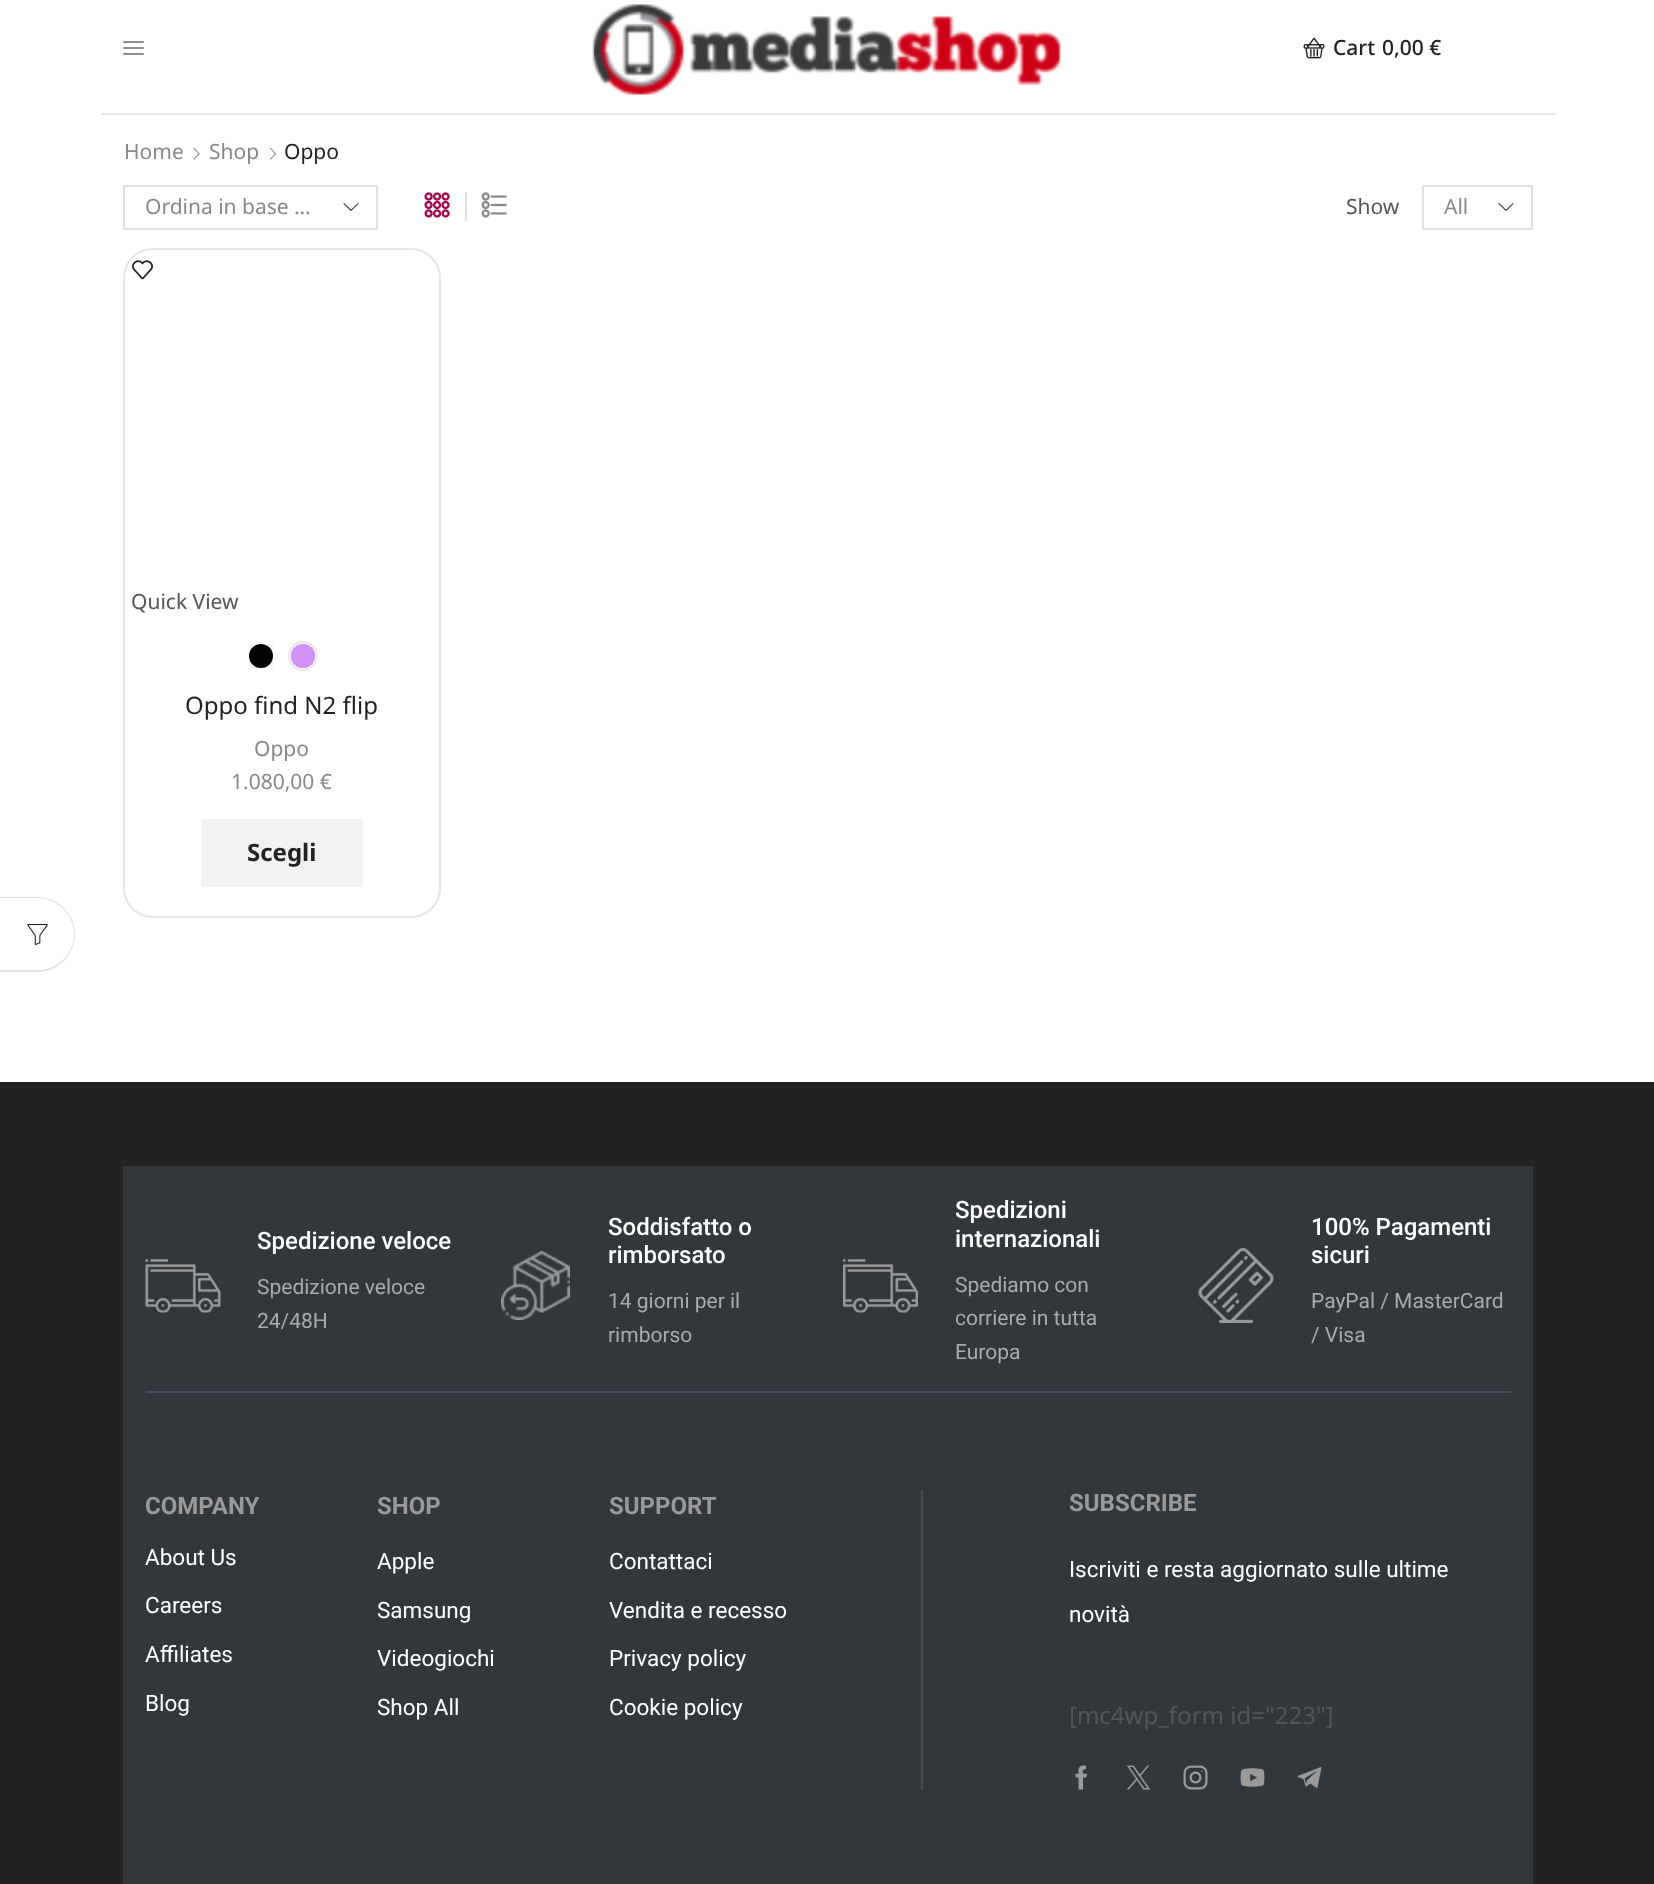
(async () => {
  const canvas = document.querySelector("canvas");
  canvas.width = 1654;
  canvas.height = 1884;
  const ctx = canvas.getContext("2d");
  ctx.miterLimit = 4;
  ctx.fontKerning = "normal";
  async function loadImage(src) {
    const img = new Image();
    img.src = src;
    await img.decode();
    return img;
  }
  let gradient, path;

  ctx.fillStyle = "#ffffff";
  ctx.fillRect(0, 0, 1654, 1884);
  ctx.fillStyle = "#e1e1e1";
  path = new Path2D("M0 897H38C58 897 75 914 75 934C75 955 58 972 38 972H0ZM0 898H38C57 898 74 915 74 934C74 954 57 970 38 970H0Z");
  ctx.fill(path, "evenodd");
  ctx.drawImage(await loadImage("img/1.png"), 27, 924, 21, 21);
  ctx.drawImage(await loadImage("img/2.png"), 123, 41, 21, 14);
  ctx.drawImage(await loadImage("img/3.png"), 592, 4, 469, 91);
  ctx.drawImage(await loadImage("img/4.png"), 1303, 37, 22, 22);
  ctx.fillStyle = "#e6e6e6";
  ctx.fillRect(101, 113, 1455, 2);
  ctx.drawImage(await loadImage("img/5.png"), 193, 147, 7, 13);
  ctx.drawImage(await loadImage("img/6.png"), 269, 147, 8, 13);
  ctx.drawImage(await loadImage("img/7.png"), 343, 203, 16, 8);
  ctx.strokeStyle = "#e1e1e1";
  ctx.lineWidth = 2;
  ctx.strokeRect(124, 186, 253, 43);
  ctx.drawImage(await loadImage("img/8.png"), 424, 192, 26, 26);
  ctx.fillStyle = "#e1e1e1";
  ctx.fillRect(465, 192, 2, 29);
  ctx.drawImage(await loadImage("img/9.png"), 481, 192, 26, 26);
  ctx.drawImage(await loadImage("img/7.png"), 1498, 203, 16, 8);
  ctx.strokeRect(1423, 186, 109, 43);
  ctx.beginPath();
  ctx.roundRect(124, 249, 316, 668, 29);
  ctx.strokeStyle = "#e5e5e5";
  ctx.stroke();
  ctx.drawImage(await loadImage("img/10.png"), 132, 260, 21, 20);
  ctx.fillStyle = "#000000";
  ctx.beginPath();
  ctx.arc(261, 656, 12, 0, Math.PI * 2);
  ctx.fill();
  ctx.fillStyle = "rgba(34, 34, 34, 0.05)";
  ctx.fillRect(249, 644, 24, 24);
  ctx.beginPath();
  ctx.arc(303, 656, 14, 0, Math.PI * 2);
  ctx.strokeStyle = "#e7e7e7";
  ctx.stroke();
  ctx.fillStyle = "#a020f0";
  ctx.beginPath();
  ctx.arc(303, 656, 12, 0, Math.PI * 2);
  ctx.fill();
  ctx.fillStyle = "rgba(255, 255, 255, 0.5)";
  ctx.beginPath();
  ctx.arc(303, 656, 12, 0, Math.PI * 2);
  ctx.fill();
  gradient = ctx.createLinearGradient(315, 668, 291, 644);
  gradient.addColorStop(0, "rgba(0, 0, 0, 0)");
  gradient.addColorStop(0.46, "rgba(175, 175, 175, 0)");
  gradient.addColorStop(0.5, "rgba(175, 175, 175, 0.3)");
  gradient.addColorStop(0.54, "rgba(175, 175, 175, 0)");
  gradient.addColorStop(1, "rgba(0, 0, 0, 0)");
  ctx.fillStyle = gradient;
  ctx.beginPath();
  ctx.arc(303, 656, 12, 0, Math.PI * 2);
  ctx.fill();
  for (const [x, y, w, h, color] of [
    [201, 819, 162, 68, "#f2f2f2"],
    [0, 1082, 1654, 802, "#222222"],
    [123, 1166, 1410, 718, "#32373c"],
    [146, 1391, 1365, 2, "#464d54"],
  ]) {
    ctx.fillStyle = color;
    ctx.fillRect(x, y, w, h);
  }
  ctx.drawImage(await loadImage("img/11.png"), 145, 1259, 76, 54);
  ctx.drawImage(await loadImage("img/12.png"), 501, 1251, 69, 69);
  ctx.drawImage(await loadImage("img/13.png"), 843, 1259, 75, 54);
  ctx.drawImage(await loadImage("img/14.png"), 1198, 1248, 76, 75);
  ctx.fillRect(921, 1490, 2, 300);
  ctx.drawImage(await loadImage("img/15.png"), 1075, 1765, 13, 25);
  ctx.drawImage(await loadImage("img/16.png"), 1127, 1765, 24, 25);
  ctx.drawImage(await loadImage("img/17.png"), 1183, 1765, 25, 25);
  ctx.drawImage(await loadImage("img/18.png"), 1240, 1768, 25, 19);
  ctx.drawImage(await loadImage("img/19.png"), 1297, 1767, 25, 21);
  ctx.font = "500 21px Noto Sans";
  ctx.fillStyle = "#222222";
  ctx.fillText("Cart", 1333, 55);
  ctx.fillText("0,00 €", 1382, 55);
  ctx.font = "21px Noto Sans";
  ctx.fillStyle = "#888888";
  ctx.fillText("Home", 124, 159);
  ctx.fillText("Shop", 209, 159);
  ctx.fillStyle = "#222222";
  ctx.fillText("Oppo", 284, 159);
  ctx.fillStyle = "#888888";
  ctx.fillText("Ordina in base …", 145, 214);
  ctx.fillStyle = "#555555";
  ctx.fillText("Show", 1346, 214);
  ctx.fillStyle = "#888888";
  ctx.fillText("All", 1444, 214);
  ctx.fillStyle = "#555555";
  ctx.fillText("Quick View", 131, 609);
  ctx.font = "24px Noto Sans";
  ctx.fillStyle = "#222222";
  ctx.fillText("Oppo find N2 flip", 185, 714);
  ctx.font = "21px Noto Sans";
  ctx.fillStyle = "#888888";
  ctx.fillText("Oppo", 254, 756);
  ctx.fillText("1.080,00 €", 231, 789);
  ctx.font = "bold 24px Noto Sans";
  ctx.fillStyle = "#222222";
  ctx.fillText("Scegli", 247, 861);
  ctx.font = "500 24px Roboto";
  ctx.fillStyle = "#ffffff";
  ctx.fillText("Spedizione veloce", 257, 1249);
  ctx.font = "21px Roboto";
  ctx.fillStyle = "#aaaaaa";
  ctx.fillText("Spedizione veloce", 257, 1294);
  ctx.fillText("24/48H", 257, 1328);
  ctx.font = "500 24px Roboto";
  ctx.fillStyle = "#ffffff";
  ctx.fillText("Soddisfatto o", 608, 1235);
  ctx.fillText("rimborsato", 608, 1263);
  ctx.font = "21px Roboto";
  ctx.fillStyle = "#aaaaaa";
  ctx.fillText("14 giorni per il", 608, 1308);
  ctx.fillText("rimborso", 608, 1342);
  ctx.font = "500 24px Roboto";
  ctx.fillStyle = "#ffffff";
  ctx.fillText("Spedizioni", 955, 1218);
  ctx.fillText("internazionali", 955, 1247);
  ctx.font = "21px Roboto";
  ctx.fillStyle = "#aaaaaa";
  for (const [text, x, y] of [
    ["Spediamo con", 955, 1292],
    ["corriere in tutta", 955, 1325],
    ["Europa", 955, 1359],
  ]) {
    ctx.fillText(text, x, y);
  }
  ctx.font = "500 24px Roboto";
  ctx.fillStyle = "#ffffff";
  ctx.fillText("100% Pagamenti", 1311, 1235);
  ctx.fillText("sicuri", 1311, 1263);
  ctx.font = "21px Roboto";
  ctx.fillStyle = "#aaaaaa";
  ctx.fillText("PayPal / MasterCard", 1311, 1308);
  ctx.fillText("/ Visa", 1311, 1342);
  ctx.font = "bold 24px Roboto";
  ctx.fillStyle = "#999999";
  ctx.fillText("COMPANY", 145, 1514);
  ctx.font = "22.5px Roboto";
  ctx.fillStyle = "#ffffff";
  for (const [text, x, y] of [
    ["About Us", 145, 1565],
    ["Careers", 145, 1613],
    ["Affiliates", 145, 1662],
    ["Blog", 145, 1711],
  ]) {
    ctx.fillText(text, x, y);
  }
  ctx.font = "bold 24px Roboto";
  ctx.fillStyle = "#999999";
  ctx.fillText("SHOP", 377, 1514);
  ctx.font = "22.5px Roboto";
  ctx.fillStyle = "#ffffff";
  for (const [text, x, y] of [
    ["Apple", 377, 1569],
    ["Samsung", 377, 1618],
    ["Videogiochi", 377, 1666],
    ["Shop All", 377, 1715],
  ]) {
    ctx.fillText(text, x, y);
  }
  ctx.font = "bold 24px Roboto";
  ctx.fillStyle = "#999999";
  ctx.fillText("SUPPORT", 609, 1514);
  ctx.font = "22.5px Roboto";
  ctx.fillStyle = "#ffffff";
  for (const [text, x, y] of [
    ["Contattaci", 609, 1569],
    ["Vendita e recesso", 609, 1618],
    ["Privacy policy", 609, 1666],
    ["Cookie policy", 609, 1715],
  ]) {
    ctx.fillText(text, x, y);
  }
  ctx.font = "bold 24px Roboto";
  ctx.fillStyle = "#999999";
  ctx.fillText("SUBSCRIBE", 1069, 1511);
  ctx.font = "22.5px Roboto";
  ctx.fillStyle = "#ffffff";
  ctx.fillText("Iscriviti e resta aggiornato sulle ultime", 1069, 1577);
  ctx.fillText("novità", 1069, 1622);
  ctx.font = "24px Noto Sans";
  ctx.fillStyle = "#555555";
  ctx.fillText("[mc4wp_form id=\"223\"]", 1069, 1724);
})();
